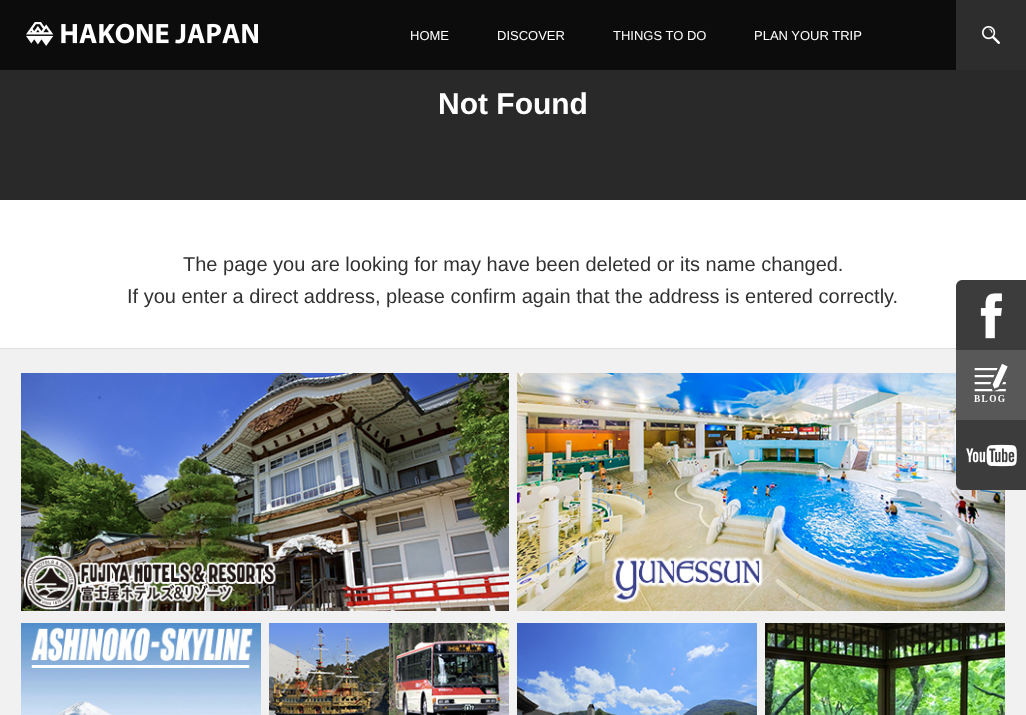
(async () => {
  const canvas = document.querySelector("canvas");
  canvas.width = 1026;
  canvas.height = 715;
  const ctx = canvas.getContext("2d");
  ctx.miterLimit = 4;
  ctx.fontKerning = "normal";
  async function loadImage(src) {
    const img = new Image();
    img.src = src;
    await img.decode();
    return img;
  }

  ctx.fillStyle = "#ffffff";
  ctx.fillRect(0, 0, 1026, 715);
  ctx.fillStyle = "#0c0c0c";
  ctx.fillRect(0, 0, 956, 70);
  ctx.drawImage(await loadImage("img/1.png"), 26, 22, 232, 24);
  ctx.fillStyle = "#2d2d2d";
  ctx.fillRect(956, 0, 70, 70);
  ctx.drawImage(await loadImage("img/2.png"), 982, 26, 18, 18);
  ctx.fillStyle = "#292929";
  ctx.fillRect(0, 70, 1026, 130);
  ctx.fillStyle = "#f1f1f1";
  ctx.fillRect(0, 349, 1026, 366);
  ctx.drawImage(await loadImage("img/3.png"), 956, 280, 70, 70);
  ctx.drawImage(await loadImage("img/7.png"), 517, 373, 488, 238);
  ctx.drawImage(await loadImage("img/4.png"), 956, 350, 70, 70);
  ctx.drawImage(await loadImage("img/5.png"), 956, 420, 70, 70);
  ctx.fillStyle = "#dedede";
  ctx.fillRect(0, 348, 956, 1);
  ctx.drawImage(await loadImage("img/6.png"), 21, 373, 488, 238);
  ctx.drawImage(await loadImage("img/8.png"), 21, 623, 240, 92);
  ctx.drawImage(await loadImage("img/9.png"), 269, 623, 240, 92);
  ctx.drawImage(await loadImage("img/10.png"), 517, 623, 240, 92);
  ctx.drawImage(await loadImage("img/11.png"), 765, 623, 240, 92);
  ctx.font = "13px Liberation Sans";
  ctx.fillStyle = "#ffffff";
  for (const [text, x, y] of [
    ["HOME", 410, 40],
    ["DISCOVER", 497, 40],
    ["THINGS TO DO", 613, 40],
    ["PLAN YOUR TRIP", 754, 40],
  ]) {
    ctx.fillText(text, x, y);
  }
  ctx.font = "bold 30px Liberation Sans";
  ctx.fillText("Not Found", 438, 114);
  ctx.font = "20px Liberation Sans";
  ctx.fillStyle = "#313131";
  ctx.fillText("The page you are looking for may have been deleted or its name changed.", 183, 271);
  ctx.fillText("If you enter a direct address, please confirm again that the address is entered correctly.", 127, 303);
})();
